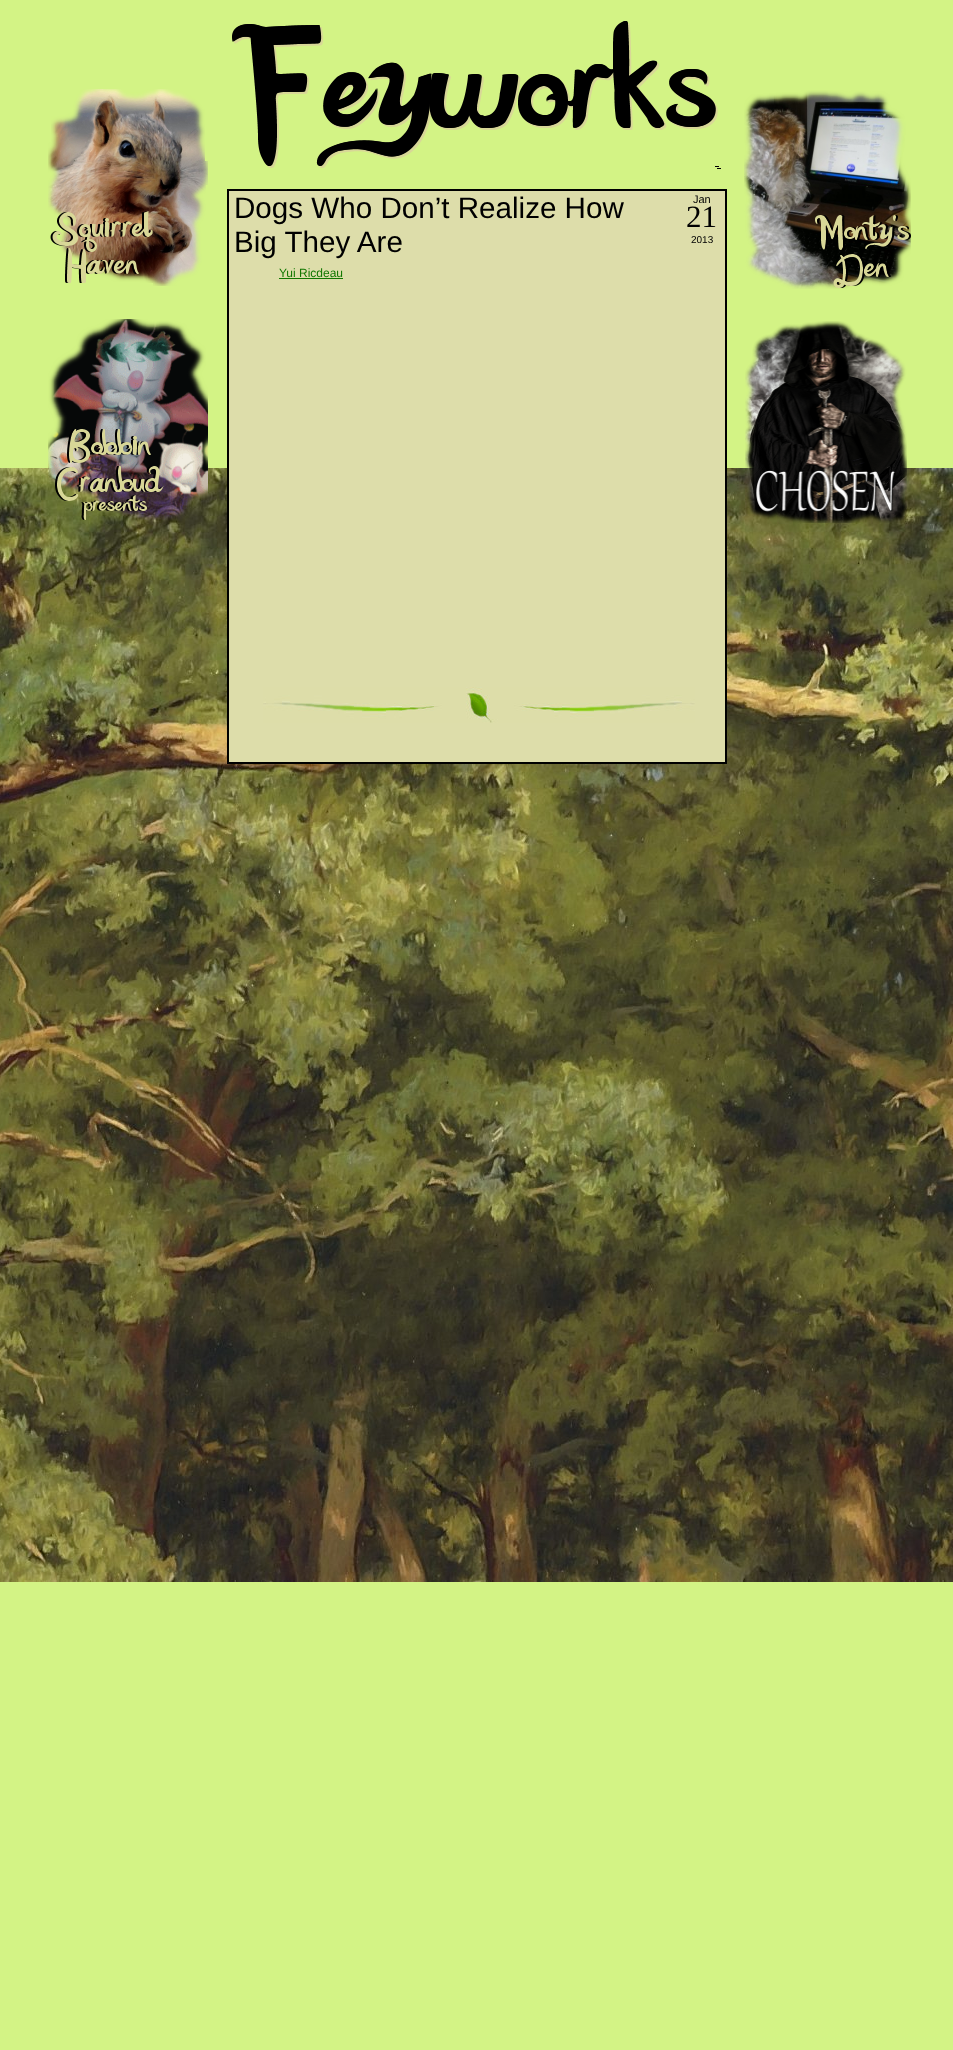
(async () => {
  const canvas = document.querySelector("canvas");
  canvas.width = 953;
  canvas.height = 2050;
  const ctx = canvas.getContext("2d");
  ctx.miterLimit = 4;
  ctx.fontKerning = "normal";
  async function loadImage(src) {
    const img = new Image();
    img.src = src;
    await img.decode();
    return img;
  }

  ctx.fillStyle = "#d3f385";
  ctx.fillRect(0, 0, 953, 2050);
  ctx.drawImage(await loadImage("img/1.png"), 0, 468, 953, 1114);
  ctx.drawImage(await loadImage("img/2.png"), 232, 21, 489, 148);
  ctx.drawImage(await loadImage("img/3.png"), 48, 89, 160, 197);
  ctx.drawImage(await loadImage("img/4.png"), 744, 90, 167, 199);
  ctx.drawImage(await loadImage("img/5.png"), 48, 319, 160, 201);
  ctx.drawImage(await loadImage("img/6.png"), 745, 321, 162, 202);
  ctx.fillStyle = "#ddddaa";
  ctx.beginPath();
  ctx.rect(228, 190, 498, 573);
  ctx.fill();
  ctx.strokeStyle = "#000000";
  ctx.lineWidth = 2;
  ctx.stroke();
  ctx.drawImage(await loadImage("img/7.png"), 263, 687, 432, 36);
  ctx.fillStyle = "#117700";
  ctx.fillRect(279, 278, 64, 1);
  ctx.font = "29.6px Liberation Sans";
  ctx.fillStyle = "#000000";
  ctx.fillText("Dogs Who Don’t Realize How", 234, 218);
  ctx.fillText("Big They Are", 234, 252);
  ctx.font = "11px Liberation Sans";
  ctx.fillText("Jan", 693, 203);
  ctx.font = "31px Liberation Serif";
  ctx.fillText("21", 686, 227);
  ctx.font = "10px Liberation Sans";
  ctx.fillText("2013", 691, 243);
  ctx.font = "12px Liberation Sans";
  ctx.fillStyle = "#117700";
  ctx.fillText("Yui Ricdeau", 279, 277);
})();
